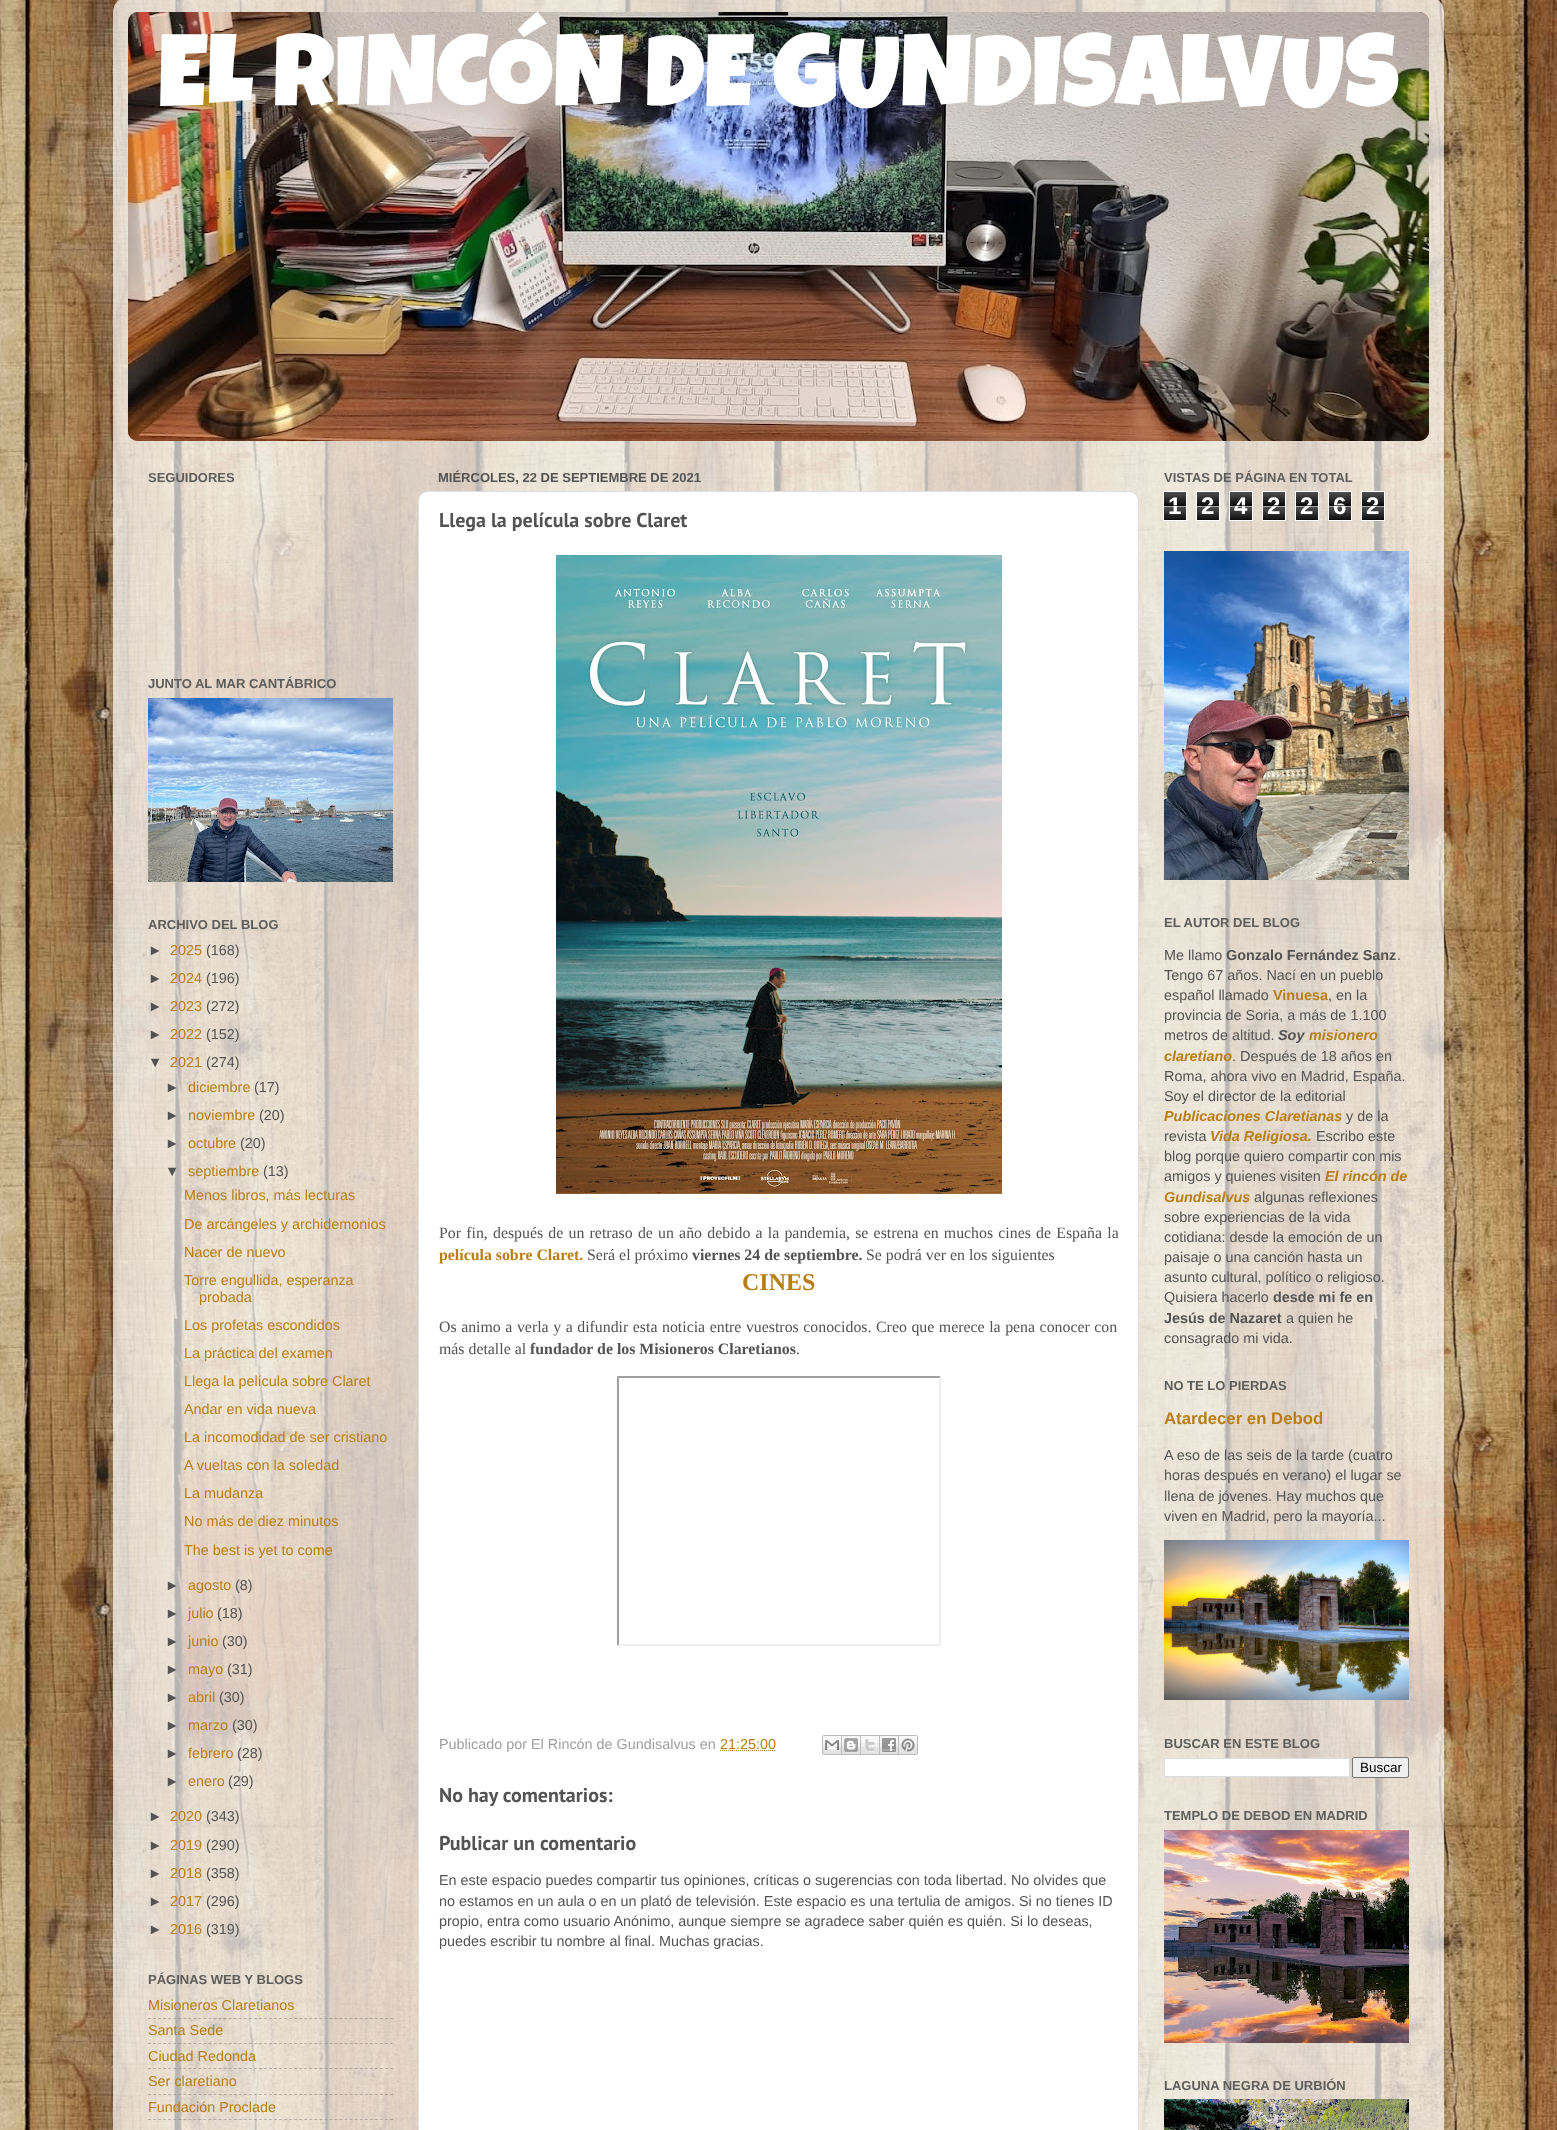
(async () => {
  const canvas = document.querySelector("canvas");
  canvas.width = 1557;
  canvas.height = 2130;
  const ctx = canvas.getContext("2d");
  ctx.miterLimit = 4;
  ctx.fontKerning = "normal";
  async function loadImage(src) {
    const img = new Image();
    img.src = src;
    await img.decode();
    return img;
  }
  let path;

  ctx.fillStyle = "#ffffff";
  ctx.fillRect(0, 0, 1557, 2130);
  ctx.drawImage(await loadImage("img/1.png"), 0, 0, 1557, 2130);
  ctx.save();
  path = new Path2D("M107 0H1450V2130H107ZM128-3H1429C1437.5-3 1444 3.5 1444 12V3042C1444 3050.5 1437.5 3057 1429 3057H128C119.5 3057 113 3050.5 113 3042V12C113 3.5 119.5-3 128-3Z");
  ctx.clip(path, "evenodd");
  ctx.fillStyle = "rgba(0, 0, 0, 0.15)";
  ctx.filter = "blur(1.5px)";
  ctx.beginPath();
  ctx.roundRect(113, -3, 1331, 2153, 15);
  ctx.fill();
  ctx.filter = "none";
  ctx.restore();
  ctx.drawImage(await loadImage("img/2.png"), 113, 0, 1331, 2130);
  ctx.fillStyle = "#791609";
  ctx.beginPath();
  ctx.roundRect(128, 12, 1301, 429, 10);
  ctx.fill();
  ctx.drawImage(await loadImage("img/3.png"), 128, 12, 1301, 10);
  ctx.drawImage(await loadImage("img/4.png"), 128, 12, 1301, 429);
  ctx.drawImage(await loadImage("img/5.png"), 148, 698, 245, 184);
  path = new Path2D("M148 2018.5H393");
  ctx.strokeStyle = "rgba(128, 128, 128, 0.5)";
  ctx.setLineDash([3, 2.04]);
  ctx.stroke(path);
  path = new Path2D("M148 2043.5H393");
  ctx.stroke(path);
  path = new Path2D("M148 2068.5H393");
  ctx.stroke(path);
  path = new Path2D("M148 2094.5H393");
  ctx.stroke(path);
  path = new Path2D("M148 2119.5H393");
  ctx.stroke(path);
  ctx.fillStyle = "#ffffff";
  ctx.beginPath();
  ctx.roundRect(418.5, 491.5, 720, 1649, 9.5);
  ctx.fill();
  ctx.strokeStyle = "#e0e0e0";
  ctx.setLineDash([]);
  ctx.stroke();
  ctx.drawImage(await loadImage("img/6.png"), 556, 555, 446, 639);
  ctx.fillStyle = "#9f9f9f";
  path = new Path2D("M617 1376H941L939 1378H619Z");
  ctx.fill(path);
  ctx.fillStyle = "#eeeeee";
  path = new Path2D("M941 1376V1646L939 1644V1378Z");
  ctx.fill(path);
  path = new Path2D("M941 1646H617L619 1644H939Z");
  ctx.fill(path);
  ctx.fillStyle = "#9f9f9f";
  path = new Path2D("M617 1646V1376L619 1378V1644Z");
  ctx.fill(path);
  path = new Path2D("M720 1750.5H776");
  ctx.strokeStyle = "#b87e14";
  ctx.setLineDash([1, 1]);
  ctx.stroke(path);
  ctx.drawImage(await loadImage("img/7.png"), 822, 1735, 20, 20);
  ctx.drawImage(await loadImage("img/8.png"), 842, 1735, 19, 20);
  ctx.drawImage(await loadImage("img/9.png"), 861, 1735, 19, 20);
  ctx.drawImage(await loadImage("img/10.png"), 880, 1735, 19, 20);
  ctx.drawImage(await loadImage("img/11.png"), 899, 1735, 19, 20);
  ctx.drawImage(await loadImage("img/12.png"), 1164, 492, 22, 28);
  ctx.strokeStyle = "#ffffff";
  ctx.setLineDash([]);
  ctx.strokeRect(1163.5, 491.5, 23, 29);
  ctx.drawImage(await loadImage("img/12.png"), 1197, 492, 22, 28);
  ctx.strokeRect(1196.5, 491.5, 23, 29);
  ctx.drawImage(await loadImage("img/12.png"), 1230, 492, 22, 28);
  ctx.strokeRect(1229.5, 491.5, 23, 29);
  ctx.drawImage(await loadImage("img/12.png"), 1263, 492, 22, 28);
  ctx.strokeRect(1262.5, 491.5, 23, 29);
  ctx.drawImage(await loadImage("img/12.png"), 1296, 492, 22, 28);
  ctx.strokeRect(1295.5, 491.5, 23, 29);
  ctx.drawImage(await loadImage("img/12.png"), 1329, 492, 22, 28);
  ctx.strokeRect(1328.5, 491.5, 23, 29);
  ctx.drawImage(await loadImage("img/12.png"), 1362, 492, 22, 28);
  ctx.strokeRect(1361.5, 491.5, 23, 29);
  ctx.drawImage(await loadImage("img/13.png"), 1164, 551, 245, 329);
  ctx.drawImage(await loadImage("img/14.png"), 1164, 1540, 245, 160);
  ctx.fillStyle = "#ffffff";
  ctx.beginPath();
  ctx.rect(1164.5, 1758.5, 185, 18);
  ctx.fill();
  ctx.strokeStyle = "#dddddd";
  ctx.stroke();
  ctx.fillStyle = "#efefef";
  ctx.beginPath();
  ctx.roundRect(1352.5, 1757.5, 56, 20, 1.5);
  ctx.fill();
  ctx.strokeStyle = "#767676";
  ctx.stroke();
  ctx.drawImage(await loadImage("img/15.png"), 1164, 1830, 245, 213);
  ctx.drawImage(await loadImage("img/16.png"), 1164, 2099, 245, 31);
  ctx.font = "102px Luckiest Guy";
  ctx.fillStyle = "#ffffff";
  ctx.fillText("EL RINCÓN DE GUNDISALVUS", 158, 106);
  ctx.font = "bold 13px Liberation Sans";
  ctx.fillStyle = "#5d5d5b";
  for (const [text, x, y] of [
    ["SEGUIDORES", 148, 482],
    ["JUNTO AL MAR CANTÁBRICO", 148, 688],
    ["ARCHIVO DEL BLOG", 148, 929],
  ]) {
    ctx.fillText(text, x, y);
  }
  ctx.font = "14.4px Liberation Sans";
  ctx.fillStyle = "#535353";
  ctx.fillText("►", 148, 955);
  ctx.fillStyle = "#b87e14";
  ctx.fillText("2025", 170, 955);
  ctx.fillStyle = "#535353";
  ctx.fillText("(168)", 206, 955);
  ctx.fillText("►", 148, 983);
  ctx.fillStyle = "#b87e14";
  ctx.fillText("2024", 170, 983);
  ctx.fillStyle = "#535353";
  ctx.fillText("(196)", 206, 983);
  ctx.fillText("►", 148, 1011);
  ctx.fillStyle = "#b87e14";
  ctx.fillText("2023", 170, 1011);
  ctx.fillStyle = "#535353";
  ctx.fillText("(272)", 206, 1011);
  ctx.fillText("►", 148, 1039);
  ctx.fillStyle = "#b87e14";
  ctx.fillText("2022", 170, 1039);
  ctx.fillStyle = "#535353";
  ctx.fillText("(152)", 206, 1039);
  ctx.fillText("▼", 148, 1067);
  ctx.fillStyle = "#b87e14";
  ctx.fillText("2021", 170, 1067);
  ctx.fillStyle = "#535353";
  ctx.fillText("(274)", 206, 1067);
  ctx.fillText("►", 165, 1092);
  ctx.fillStyle = "#b87e14";
  ctx.fillText("diciembre", 188, 1092);
  ctx.fillStyle = "#535353";
  ctx.fillText("(17)", 254, 1092);
  ctx.fillText("►", 165, 1120);
  ctx.fillStyle = "#b87e14";
  ctx.fillText("noviembre", 188, 1120);
  ctx.fillStyle = "#535353";
  ctx.fillText("(20)", 259, 1120);
  ctx.fillText("►", 165, 1148);
  ctx.fillStyle = "#b87e14";
  ctx.fillText("octubre", 188, 1148);
  ctx.fillStyle = "#535353";
  ctx.fillText("(20)", 240, 1148);
  ctx.fillText("▼", 165, 1176);
  ctx.fillStyle = "#b87e14";
  ctx.fillText("septiembre", 188, 1176);
  ctx.fillStyle = "#535353";
  ctx.fillText("(13)", 263, 1176);
  ctx.fillStyle = "#b87e14";
  for (const [text, x, y] of [
    ["Menos libros, más lecturas", 184, 1200],
    ["De arcángeles y archidemonios", 184, 1229],
    ["Nacer de nuevo", 184, 1257],
    ["Torre engullida, esperanza", 184, 1285],
    ["probada", 199, 1302],
    ["Los profetas escondidos", 184, 1330],
    ["La práctica del examen", 184, 1358],
    ["Llega la película sobre Claret", 184, 1386],
    ["Andar en vida nueva", 184, 1414],
    ["La incomodidad de ser cristiano", 184, 1442],
    ["A vueltas con la soledad", 184, 1470],
    ["La mudanza", 184, 1498],
    ["No más de diez minutos", 184, 1526],
    ["The best is yet to come", 184, 1555],
  ]) {
    ctx.fillText(text, x, y);
  }
  ctx.fillStyle = "#535353";
  ctx.fillText("►", 165, 1590);
  ctx.fillStyle = "#b87e14";
  ctx.fillText("agosto", 188, 1590);
  ctx.fillStyle = "#535353";
  ctx.fillText("(8)", 235, 1590);
  ctx.fillText("►", 165, 1618);
  ctx.fillStyle = "#b87e14";
  ctx.fillText("julio", 188, 1618);
  ctx.fillStyle = "#535353";
  ctx.fillText("(18)", 217, 1618);
  ctx.fillText("►", 165, 1646);
  ctx.fillStyle = "#b87e14";
  ctx.fillText("junio", 188, 1646);
  ctx.fillStyle = "#535353";
  ctx.fillText("(30)", 222, 1646);
  ctx.fillText("►", 165, 1674);
  ctx.fillStyle = "#b87e14";
  ctx.fillText("mayo", 188, 1674);
  ctx.fillStyle = "#535353";
  ctx.fillText("(31)", 227, 1674);
  ctx.fillText("►", 165, 1702);
  ctx.fillStyle = "#b87e14";
  ctx.fillText("abril", 188, 1702);
  ctx.fillStyle = "#535353";
  ctx.fillText("(30)", 219, 1702);
  ctx.fillText("►", 165, 1730);
  ctx.fillStyle = "#b87e14";
  ctx.fillText("marzo", 188, 1730);
  ctx.fillStyle = "#535353";
  ctx.fillText("(30)", 232, 1730);
  ctx.fillText("►", 165, 1758);
  ctx.fillStyle = "#b87e14";
  ctx.fillText("febrero", 188, 1758);
  ctx.fillStyle = "#535353";
  ctx.fillText("(28)", 237, 1758);
  ctx.fillText("►", 165, 1786);
  ctx.fillStyle = "#b87e14";
  ctx.fillText("enero", 188, 1786);
  ctx.fillStyle = "#535353";
  ctx.fillText("(29)", 228, 1786);
  ctx.fillText("►", 148, 1821);
  ctx.fillStyle = "#b87e14";
  ctx.fillText("2020", 170, 1821);
  ctx.fillStyle = "#535353";
  ctx.fillText("(343)", 206, 1821);
  ctx.fillText("►", 148, 1850);
  ctx.fillStyle = "#b87e14";
  ctx.fillText("2019", 170, 1850);
  ctx.fillStyle = "#535353";
  ctx.fillText("(290)", 206, 1850);
  ctx.fillText("►", 148, 1878);
  ctx.fillStyle = "#b87e14";
  ctx.fillText("2018", 170, 1878);
  ctx.fillStyle = "#535353";
  ctx.fillText("(358)", 206, 1878);
  ctx.fillText("►", 148, 1906);
  ctx.fillStyle = "#b87e14";
  ctx.fillText("2017", 170, 1906);
  ctx.fillStyle = "#535353";
  ctx.fillText("(296)", 206, 1906);
  ctx.fillText("►", 148, 1934);
  ctx.fillStyle = "#b87e14";
  ctx.fillText("2016", 170, 1934);
  ctx.fillStyle = "#535353";
  ctx.fillText("(319)", 206, 1934);
  ctx.font = "bold 13px Liberation Sans";
  ctx.fillStyle = "#5d5d5b";
  ctx.fillText("PÁGINAS WEB Y BLOGS", 148, 1984);
  ctx.font = "14.4px Liberation Sans";
  ctx.fillStyle = "#b87e14";
  for (const [text, x, y] of [
    ["Misioneros Claretianos", 148, 2010],
    ["Santa Sede", 148, 2035],
    ["Ciudad Redonda", 148, 2061],
    ["Ser claretiano", 148, 2086],
    ["Fundación Proclade", 148, 2112],
  ]) {
    ctx.fillText(text, x, y);
  }
  ctx.font = "bold 13px Liberation Sans";
  ctx.fillStyle = "#535353";
  ctx.fillText("MIÉRCOLES, 22 DE SEPTIEMBRE DE 2021", 438, 482);
  ctx.font = "bold 20px PT Sans";
  ctx.fillText("Llega la película sobre Claret", 439, 527);
  ctx.wordSpacing = "1.25px";
  ctx.font = "15.85px Liberation Serif";
  ctx.fillText("Por fin, después de un retraso de un año debido a la pandemia, se estrena en muchos cines de España la", 439, 1238);
  ctx.wordSpacing = "0px";
  ctx.font = "bold 15.85px Liberation Serif";
  ctx.fillStyle = "#b87e14";
  ctx.fillText("película sobre Claret.", 439, 1260);
  ctx.font = "15.85px Liberation Serif";
  ctx.fillStyle = "#535353";
  ctx.fillText("Será el próximo", 587, 1260);
  ctx.font = "bold 15.85px Liberation Serif";
  ctx.fillText("viernes 24 de septiembre.", 692, 1260);
  ctx.font = "15.85px Liberation Serif";
  ctx.fillText("Se podrá ver en los siguientes", 866, 1260);
  ctx.font = "bold 24px Liberation Serif";
  ctx.fillStyle = "#b87e14";
  ctx.fillText("CINES", 742, 1290);
  ctx.wordSpacing = "0.6px";
  ctx.font = "15.85px Liberation Serif";
  ctx.fillStyle = "#535353";
  ctx.fillText("Os animo a verla y a difundir esta noticia entre vuestros conocidos. Creo que merece la pena conocer con", 439, 1332);
  ctx.wordSpacing = "0px";
  ctx.fillText("más detalle al", 439, 1354);
  ctx.font = "bold 15.85px Liberation Serif";
  ctx.fillText("fundador de los Misioneros Claretianos", 530, 1354);
  ctx.font = "15.85px Liberation Serif";
  ctx.fillText(".", 796, 1354);
  ctx.font = "14.4px Liberation Sans";
  ctx.fillStyle = "#9f9f9f";
  ctx.fillText("Publicado por El Rincón de Gundisalvus en", 439, 1749);
  ctx.fillStyle = "#b87e14";
  ctx.fillText("21:25:00", 720, 1749);
  ctx.font = "bold 20px PT Sans";
  ctx.fillStyle = "#535353";
  ctx.fillText("No hay comentarios:", 439, 1802);
  ctx.fillText("Publicar un comentario", 439, 1850);
  ctx.font = "14.4px Liberation Sans";
  for (const [text, x, y] of [
    ["En este espacio puedes compartir tus opiniones, críticas o sugerencias con toda libertad. No olvides que", 439, 1885],
    ["no estamos en un aula o en un plató de televisión. Este espacio es una tertulia de amigos. Si no tienes ID", 439, 1906],
    ["propio, entra como usuario Anónimo, aunque siempre se agradece saber quién es quién. Si lo deseas,", 439, 1926],
    ["puedes escribir tu nombre al final. Muchas gracias.", 439, 1946],
  ]) {
    ctx.fillText(text, x, y);
  }
  ctx.font = "bold 13px Liberation Sans";
  ctx.fillStyle = "#5d5d5b";
  ctx.fillText("VISTAS DE PÁGINA EN TOTAL", 1164, 482);
  ctx.font = "bold 24px Liberation Sans";
  ctx.fillStyle = "#ffffff";
  ctx.fillText("1", 1168, 514);
  ctx.fillStyle = "rgba(0, 0, 0, 0.65)";
  ctx.fillRect(1164, 505, 22, 1);
  ctx.fillStyle = "rgba(255, 255, 255, 0.65)";
  ctx.fillRect(1164, 506, 22, 1);
  ctx.fillStyle = "#ffffff";
  ctx.fillText("2", 1201, 514);
  ctx.fillStyle = "rgba(0, 0, 0, 0.65)";
  ctx.fillRect(1197, 505, 22, 1);
  ctx.fillStyle = "rgba(255, 255, 255, 0.65)";
  ctx.fillRect(1197, 506, 22, 1);
  ctx.fillStyle = "#ffffff";
  ctx.fillText("4", 1234, 514);
  ctx.fillStyle = "rgba(0, 0, 0, 0.65)";
  ctx.fillRect(1230, 505, 22, 1);
  ctx.fillStyle = "rgba(255, 255, 255, 0.65)";
  ctx.fillRect(1230, 506, 22, 1);
  ctx.fillStyle = "#ffffff";
  ctx.fillText("2", 1267, 514);
  ctx.fillStyle = "rgba(0, 0, 0, 0.65)";
  ctx.fillRect(1263, 505, 22, 1);
  ctx.fillStyle = "rgba(255, 255, 255, 0.65)";
  ctx.fillRect(1263, 506, 22, 1);
  ctx.fillStyle = "#ffffff";
  ctx.fillText("2", 1300, 514);
  ctx.fillStyle = "rgba(0, 0, 0, 0.65)";
  ctx.fillRect(1296, 505, 22, 1);
  ctx.fillStyle = "rgba(255, 255, 255, 0.65)";
  ctx.fillRect(1296, 506, 22, 1);
  ctx.fillStyle = "#ffffff";
  ctx.fillText("6", 1333, 514);
  ctx.fillStyle = "rgba(0, 0, 0, 0.65)";
  ctx.fillRect(1329, 505, 22, 1);
  ctx.fillStyle = "rgba(255, 255, 255, 0.65)";
  ctx.fillRect(1329, 506, 22, 1);
  ctx.fillStyle = "#ffffff";
  ctx.fillText("2", 1366, 514);
  ctx.fillStyle = "rgba(0, 0, 0, 0.65)";
  ctx.fillRect(1362, 505, 22, 1);
  ctx.fillStyle = "rgba(255, 255, 255, 0.65)";
  ctx.fillRect(1362, 506, 22, 1);
  ctx.font = "bold 13px Liberation Sans";
  ctx.fillStyle = "#5d5d5b";
  ctx.fillText("EL AUTOR DEL BLOG", 1164, 927);
  ctx.font = "14.4px Liberation Sans";
  ctx.fillStyle = "#535353";
  ctx.fillText("Me llamo", 1164, 960);
  ctx.font = "bold 14.4px Liberation Sans";
  ctx.fillText("Gonzalo Fernández Sanz", 1226, 960);
  ctx.font = "14.4px Liberation Sans";
  for (const [text, x, y] of [
    [".", 1397, 960],
    ["Tengo 67 años. Nací en un pueblo", 1164, 980],
    ["español llamado", 1164, 1000],
  ]) {
    ctx.fillText(text, x, y);
  }
  ctx.font = "bold 14.4px Liberation Sans";
  ctx.fillStyle = "#b87e14";
  ctx.fillText("Vinuesa", 1273, 1000);
  ctx.font = "14.4px Liberation Sans";
  ctx.fillStyle = "#535353";
  for (const [text, x, y] of [
    [", en la", 1328, 1000],
    ["provincia de Soria, a más de 1.100", 1164, 1020],
    ["metros de altitud.", 1164, 1040],
  ]) {
    ctx.fillText(text, x, y);
  }
  ctx.font = "italic bold 14.4px Liberation Sans";
  ctx.fillText("Soy", 1278, 1040);
  ctx.fillStyle = "#b87e14";
  ctx.fillText("misionero", 1309, 1040);
  ctx.fillText("claretiano", 1164, 1061);
  ctx.font = "14.4px Liberation Sans";
  ctx.fillStyle = "#535353";
  for (const [text, x, y] of [
    [". Después de 18 años en", 1232, 1061],
    ["Roma, ahora vivo en Madrid, España.", 1164, 1081],
    ["Soy el director de la editorial", 1164, 1101],
  ]) {
    ctx.fillText(text, x, y);
  }
  ctx.font = "italic bold 14.4px Liberation Sans";
  ctx.fillStyle = "#b87e14";
  ctx.fillText("Publicaciones Claretianas", 1164, 1121);
  ctx.font = "14.4px Liberation Sans";
  ctx.fillStyle = "#535353";
  ctx.fillText("y de la", 1346, 1121);
  ctx.fillText("revista", 1164, 1141);
  ctx.font = "italic bold 14.4px Liberation Sans";
  ctx.fillStyle = "#b87e14";
  ctx.fillText("Vida Religiosa.", 1210, 1141);
  ctx.font = "14.4px Liberation Sans";
  ctx.fillStyle = "#535353";
  for (const [text, x, y] of [
    ["Escribo este", 1316, 1141],
    ["blog porque quiero compartir con mis", 1164, 1161],
    ["amigos y quienes visiten", 1164, 1181],
  ]) {
    ctx.fillText(text, x, y);
  }
  ctx.font = "italic bold 14.4px Liberation Sans";
  ctx.fillStyle = "#b87e14";
  ctx.fillText("El rincón de", 1325, 1181);
  ctx.fillText("Gundisalvus", 1164, 1202);
  ctx.font = "14.4px Liberation Sans";
  ctx.fillStyle = "#535353";
  for (const [text, x, y] of [
    ["algunas reflexiones", 1254, 1202],
    ["sobre experiencias de la vida", 1164, 1222],
    ["cotidiana: desde la emoción de un", 1164, 1242],
    ["paisaje o una canción hasta un", 1164, 1262],
    ["asunto cultural, político o religioso.", 1164, 1282],
    ["Quisiera hacerlo", 1164, 1302],
  ]) {
    ctx.fillText(text, x, y);
  }
  ctx.font = "bold 14.4px Liberation Sans";
  ctx.fillText("desde mi fe en", 1273, 1302);
  ctx.fillText("Jesús de Nazaret", 1164, 1323);
  ctx.font = "14.4px Liberation Sans";
  ctx.fillText("a quien he", 1286, 1323);
  ctx.fillText("consagrado mi vida.", 1164, 1343);
  ctx.font = "bold 13px Liberation Sans";
  ctx.fillStyle = "#5d5d5b";
  ctx.fillText("NO TE LO PIERDAS", 1164, 1390);
  ctx.font = "bold 16.75px Liberation Sans";
  ctx.fillStyle = "#b87e14";
  ctx.fillText("Atardecer en Debod", 1164, 1424);
  ctx.font = "14.4px Liberation Sans";
  ctx.fillStyle = "#535353";
  for (const [text, x, y] of [
    ["A eso de las seis de la tarde (cuatro", 1164, 1460],
    ["horas después en verano) el lugar se", 1164, 1480],
    ["llena de jóvenes. Hay muchos que", 1164, 1501],
    ["viven en Madrid, pero la mayoría...", 1164, 1521],
  ]) {
    ctx.fillText(text, x, y);
  }
  ctx.font = "bold 13px Liberation Sans";
  ctx.fillStyle = "#5d5d5b";
  ctx.fillText("BUSCAR EN ESTE BLOG", 1164, 1748);
  ctx.font = "13.5px Liberation Sans";
  ctx.fillStyle = "#000000";
  ctx.fillText("Buscar", 1360, 1772);
  ctx.font = "bold 13px Liberation Sans";
  ctx.fillStyle = "#5d5d5b";
  ctx.fillText("TEMPLO DE DEBOD EN MADRID", 1164, 1820);
  ctx.fillText("LAGUNA NEGRA DE URBIÓN", 1164, 2090);
})();
